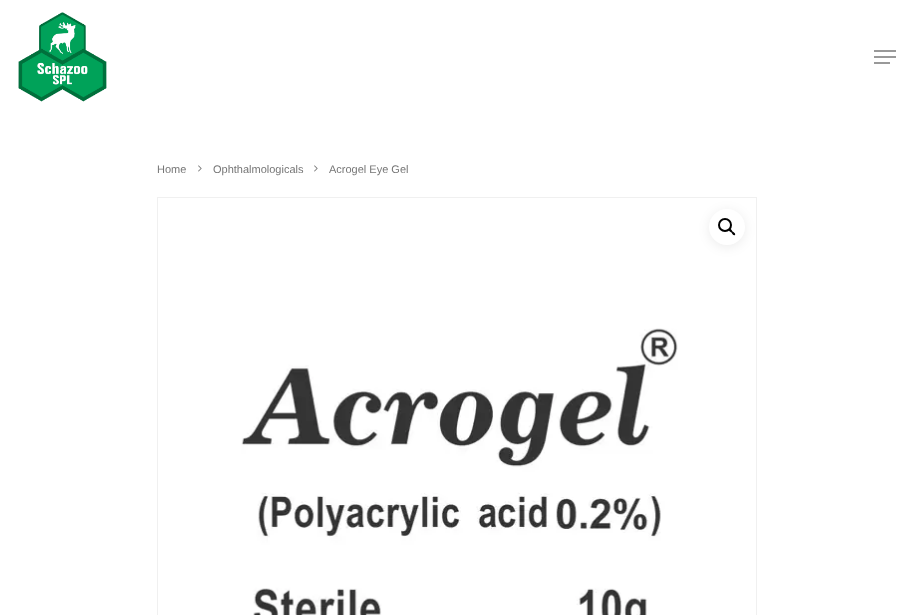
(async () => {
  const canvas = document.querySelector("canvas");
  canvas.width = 914;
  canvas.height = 615;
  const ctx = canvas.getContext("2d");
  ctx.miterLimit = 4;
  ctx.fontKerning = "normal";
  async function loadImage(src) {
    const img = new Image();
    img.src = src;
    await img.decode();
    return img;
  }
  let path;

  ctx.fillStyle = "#ffffff";
  ctx.fillRect(0, 0, 914, 615);
  ctx.drawImage(await loadImage("img/1.png"), 18, 12, 89, 90);
  for (const [x, y, w, h, color] of [
    [874, 50, 22, 2, "#999999"],
    [874, 62, 16, 2, "#999999"],
    [874, 56, 22, 2, "#999999"],
  ]) {
    ctx.fillStyle = color;
    ctx.fillRect(x, y, w, h);
  }
  ctx.drawImage(await loadImage("img/2.png"), 198, 165, 4, 7);
  ctx.drawImage(await loadImage("img/2.png"), 314, 165, 4, 7);
  ctx.strokeStyle = "#f0f0f0";
  ctx.strokeRect(157.5, 197.5, 599, 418);
  ctx.fillStyle = "rgba(0, 0, 0, 0.08)";
  ctx.filter = "blur(6px)";
  ctx.beginPath();
  ctx.roundRect(709, 211, 36, 36, 18);
  ctx.fill();
  ctx.filter = "none";
  ctx.fillStyle = "#ffffff";
  ctx.beginPath();
  ctx.arc(727, 227, 18, 0, Math.PI * 2);
  ctx.fill();
  ctx.beginPath();
  ctx.arc(725, 225, 6, 0, Math.PI * 2);
  ctx.strokeStyle = "#000000";
  ctx.lineWidth = 2;
  ctx.stroke();
  ctx.fillStyle = "#000000";
  path = new Path2D("M729 229C730.5 228 732 230.5 732.5 231.5C733.5 232 736 233.5 735 235C733.5 236 732 233.5 731.5 232.5C730.5 232 728 230.5 729 229Z");
  ctx.fill(path);
  ctx.drawImage(await loadImage("img/3.png"), 241, 328, 437, 287);
  ctx.font = "11px Liberation Sans";
  ctx.fillStyle = "#767676";
  for (const [text, x, y] of [
    ["Home", 157, 173],
    ["Ophthalmologicals", 213, 173],
    ["Acrogel Eye Gel", 329, 173],
  ]) {
    ctx.fillText(text, x, y);
  }
})();
